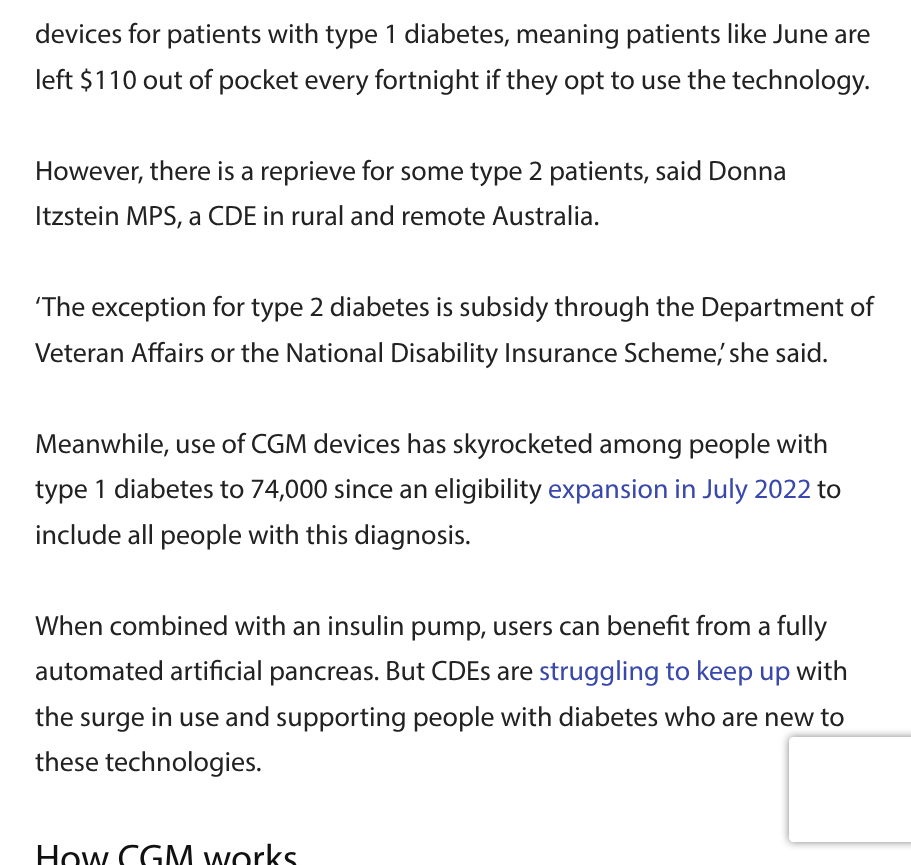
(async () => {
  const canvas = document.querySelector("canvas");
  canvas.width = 911;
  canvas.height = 865;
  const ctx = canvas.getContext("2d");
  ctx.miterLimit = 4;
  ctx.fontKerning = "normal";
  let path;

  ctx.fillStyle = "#ffffff";
  ctx.fillRect(0, 0, 911, 865);
  ctx.save();
  path = new Path2D("M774 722H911V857H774ZM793 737H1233C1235 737 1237 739 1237 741V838C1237 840 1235 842 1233 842H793C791 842 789 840 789 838V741C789 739 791 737 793 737Z");
  ctx.clip(path, "evenodd");
  ctx.fillStyle = "#808080";
  ctx.filter = "blur(4.5px)";
  ctx.beginPath();
  ctx.roundRect(789, 737, 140, 105, 4);
  ctx.fill();
  ctx.filter = "none";
  ctx.restore();
  ctx.font = "28px Myriad";
  ctx.fillStyle = "#222222";
  for (const [text, x, y] of [
    ["devices for patients with type 1 diabetes, meaning patients like June are", 35, 43],
    ["left $110 out of pocket every fortnight if they opt to use the technology.", 35, 89],
    ["However, there is a reprieve for some type 2 patients, said Donna", 35, 180],
    ["Itzstein MPS, a CDE in rural and remote Australia.", 35, 225],
    ["‘The exception for type 2 diabetes is subsidy through the Department of", 35, 316],
    ["Veteran Affairs or the National Disability Insurance Scheme,’ she said.", 35, 362],
    ["Meanwhile, use of CGM devices has skyrocketed among people with", 35, 453],
    ["type 1 diabetes to 74,000 since an eligibility", 35, 498],
  ]) {
    ctx.fillText(text, x, y);
  }
  ctx.fillStyle = "#3949ab";
  ctx.fillText("expansion in July 2022", 548, 498);
  ctx.fillStyle = "#222222";
  for (const [text, x, y] of [
    ["to", 817, 498],
    ["include all people with this diagnosis.", 35, 544],
    ["When combined with an insulin pump, users can benefit from a fully", 35, 635],
    ["automated artificial pancreas. But CDEs are", 35, 680],
  ]) {
    ctx.fillText(text, x, y);
  }
  ctx.fillStyle = "#3949ab";
  ctx.fillText("struggling to keep up", 539, 680);
  ctx.fillStyle = "#222222";
  for (const [text, x, y] of [
    ["with", 796, 680],
    ["the surge in use and supporting people with diabetes who are new to", 35, 726],
    ["these technologies.", 35, 771],
  ]) {
    ctx.fillText(text, x, y);
  }
  ctx.font = "38.5px Myriad";
  ctx.fillStyle = "#111111";
  ctx.fillText("How CGM works", 35, 871);
})();
